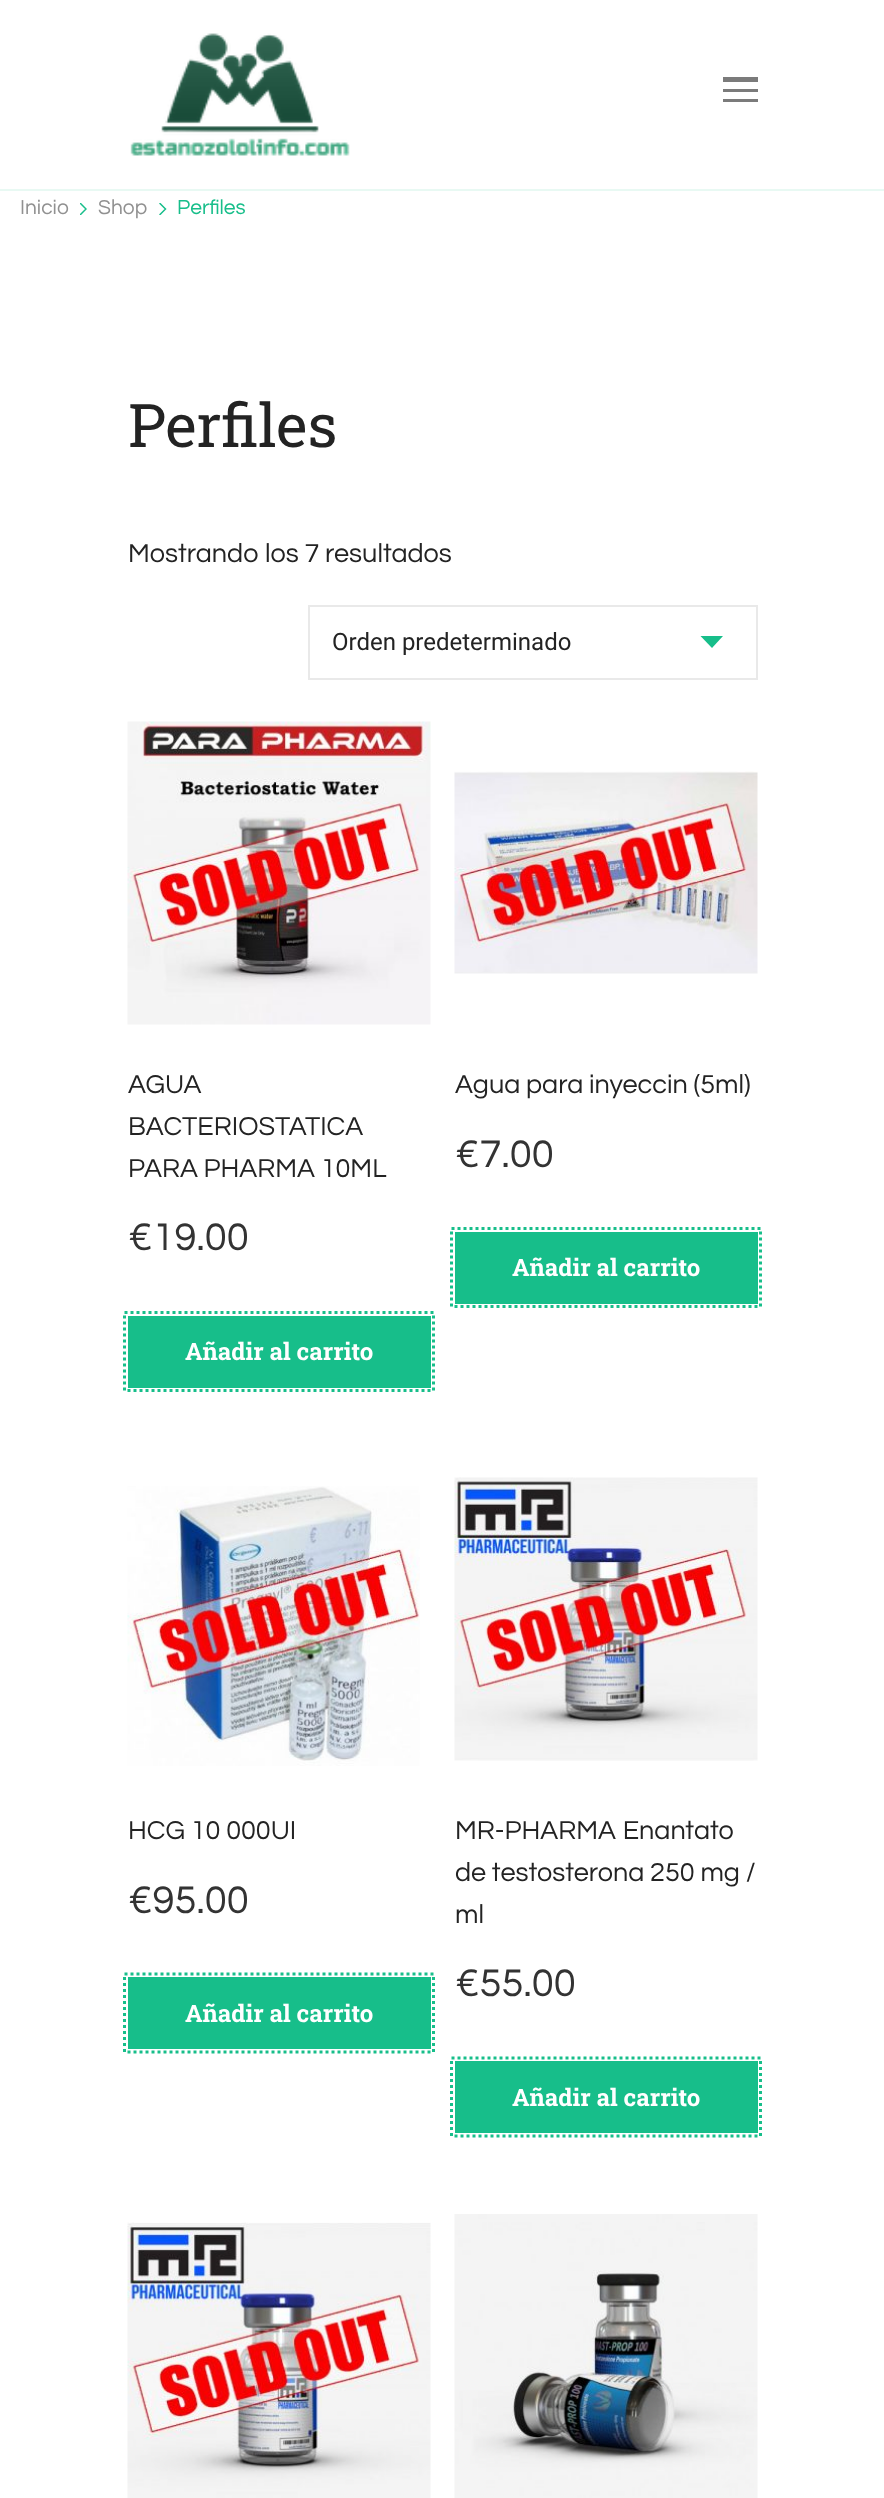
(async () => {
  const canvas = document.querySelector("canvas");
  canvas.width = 884;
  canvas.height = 2498;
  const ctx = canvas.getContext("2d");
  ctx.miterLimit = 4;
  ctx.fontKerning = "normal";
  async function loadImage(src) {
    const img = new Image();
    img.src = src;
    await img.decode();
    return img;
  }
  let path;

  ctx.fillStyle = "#ffffff";
  ctx.fillRect(0, 0, 884, 2498);
  ctx.drawImage(await loadImage("img/1.png"), 130, 33, 220, 123);
  for (const [x, y, w, h, color] of [
    [723, 77, 35, 5, "#7b7b7b"],
    [723, 89, 35, 3, "#7b7b7b"],
    [723, 99, 35, 3, "#7b7b7b"],
    [0, 189, 884, 2, "#e8f9f3"],
  ]) {
    ctx.fillStyle = color;
    ctx.fillRect(x, y, w, h);
  }
  ctx.save();
  ctx.beginPath();
  ctx.rect(80, 203, 7, 12);
  ctx.clip();
  path = new Path2D("M80.5 203.5L86 209L80.5 214.5");
  ctx.strokeStyle = "#17be8a";
  ctx.lineWidth = 1.5;
  ctx.lineCap = "round";
  ctx.stroke(path);
  ctx.restore();
  ctx.save();
  ctx.beginPath();
  ctx.rect(159, 203, 8, 12);
  ctx.clip();
  path = new Path2D("M160 203.5L165.5 209L160 214.5");
  ctx.strokeStyle = "#17be8a";
  ctx.lineWidth = 1.5;
  ctx.lineCap = "round";
  ctx.stroke(path);
  ctx.restore();
  ctx.fillStyle = "#17be8a";
  path = new Path2D("M712 648L700.5 636H723Z");
  ctx.fill(path);
  ctx.strokeStyle = "#e9e9e9";
  ctx.lineWidth = 2;
  ctx.strokeRect(309, 606, 448, 73);
  ctx.drawImage(await loadImage("img/2.png"), 127, 721, 304, 304);
  ctx.fillRect(128, 1316, 303, 72);
  ctx.drawImage(await loadImage("img/3.png"), 454, 771, 304, 203);
  ctx.fillRect(455, 1232, 303, 72);
  ctx.drawImage(await loadImage("img/4.png"), 127, 1486, 293, 280);
  ctx.fillRect(128, 1977, 303, 72);
  ctx.drawImage(await loadImage("img/5.png"), 454, 1477, 304, 284);
  ctx.fillRect(455, 2061, 303, 72);
  ctx.drawImage(await loadImage("img/6.png"), 127, 2222, 304, 276);
  ctx.drawImage(await loadImage("img/7.png"), 454, 2214, 304, 284);
  ctx.font = "21px Questrial";
  ctx.fillStyle = "#919191";
  ctx.fillText("Inicio", 20, 214);
  ctx.fillText("Shop", 98, 214);
  ctx.fillStyle = "#17be8a";
  ctx.fillText("Perfiles", 177, 214);
  ctx.font = "60px Roboto Slab";
  ctx.fillStyle = "#232323";
  ctx.fillText("Perfiles", 128, 447);
  ctx.font = "27px Questrial";
  ctx.fillText("Mostrando los 7 resultados", 128, 562);
  ctx.font = "24px Roboto";
  ctx.fillText("Orden predeterminado", 332, 650);
  ctx.font = "27px Questrial";
  for (const [text, x, y] of [
    ["AGUA", 128, 1093],
    ["BACTERIOSTATICA", 128, 1135],
    ["PARA PHARMA 10ML", 128, 1177],
  ]) {
    ctx.fillText(text, x, y);
  }
  ctx.font = "40px Questrial";
  ctx.fillStyle = "#333333";
  ctx.fillText("€19.00", 128, 1250);
  ctx.font = "bold 24px Roboto Slab";
  ctx.fillStyle = "#ffffff";
  ctx.fillText("Añadir al carrito", 185, 1360);
  path = new Path2D("M124.5 1312.5H433.5V1390.5H124.5Z");
  ctx.strokeStyle = "#17be8a";
  ctx.lineWidth = 3;
  ctx.setLineDash([3, 3]);
  ctx.stroke(path);
  ctx.font = "27px Questrial";
  ctx.fillStyle = "#232323";
  ctx.fillText("Agua para inyeccin (5ml)", 455, 1093);
  ctx.font = "40px Questrial";
  ctx.fillStyle = "#333333";
  ctx.fillText("€7.00", 455, 1167);
  ctx.font = "bold 24px Roboto Slab";
  ctx.fillStyle = "#ffffff";
  ctx.fillText("Añadir al carrito", 512, 1276);
  path = new Path2D("M451.5 1228.5H760.5V1306.5H451.5Z");
  ctx.stroke(path);
  ctx.font = "27px Questrial";
  ctx.fillStyle = "#232323";
  ctx.fillText("HCG 10 000UI", 128, 1839);
  ctx.font = "40px Questrial";
  ctx.fillStyle = "#333333";
  ctx.fillText("€95.00", 128, 1913);
  ctx.font = "bold 24px Roboto Slab";
  ctx.fillStyle = "#ffffff";
  ctx.fillText("Añadir al carrito", 185, 2022);
  path = new Path2D("M124.5 1974H433.5V2052H124.5Z");
  ctx.stroke(path);
  ctx.wordSpacing = "1px";
  ctx.font = "27px Questrial";
  ctx.fillStyle = "#232323";
  ctx.fillText("MR-PHARMA Enantato", 455, 1839);
  ctx.wordSpacing = "0px";
  ctx.fillText("de testosterona 250 mg /", 455, 1881);
  ctx.fillText("ml", 455, 1923);
  ctx.font = "40px Questrial";
  ctx.fillStyle = "#333333";
  ctx.fillText("€55.00", 455, 1996);
  ctx.font = "bold 24px Roboto Slab";
  ctx.fillStyle = "#ffffff";
  ctx.fillText("Añadir al carrito", 512, 2106);
  path = new Path2D("M451.5 2058H760.5V2136H451.5Z");
  ctx.stroke(path);
})();
